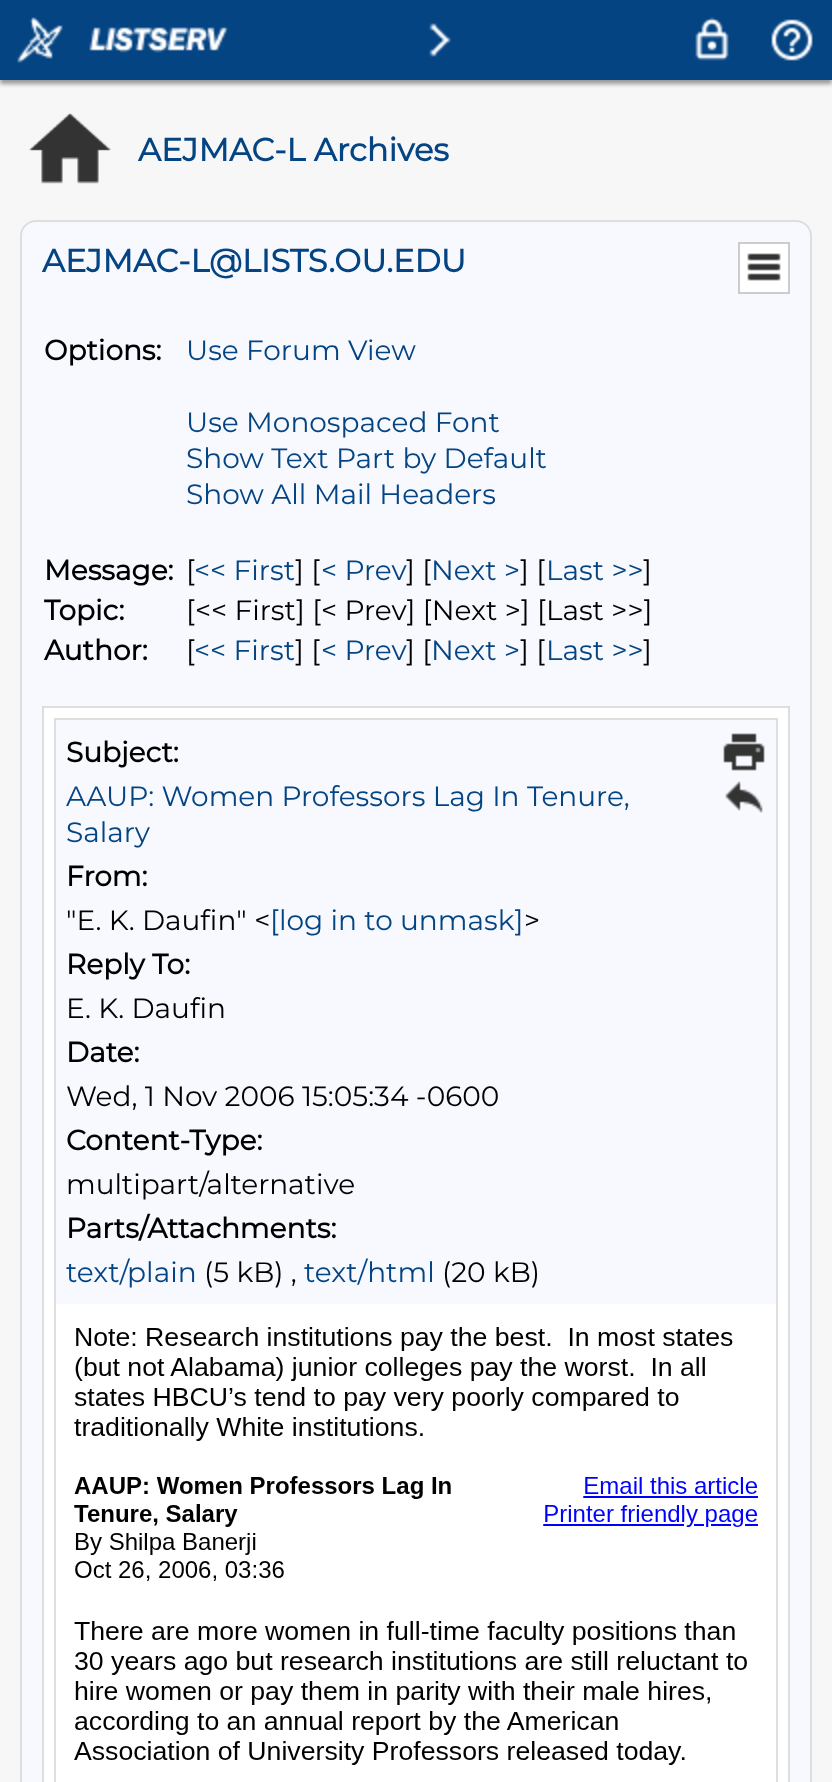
(async () => {
  const canvas = document.querySelector("canvas");
  canvas.width = 832;
  canvas.height = 1782;
  const ctx = canvas.getContext("2d");
  ctx.miterLimit = 4;
  ctx.fontKerning = "normal";
  async function loadImage(src) {
    const img = new Image();
    img.src = src;
    await img.decode();
    return img;
  }

  ctx.fillStyle = "#f7f7f7";
  ctx.fillRect(0, 0, 832, 1782);
  ctx.fillStyle = "#999999";
  ctx.filter = "blur(2px)";
  ctx.beginPath();
  ctx.rect(0, 4, 832, 80);
  ctx.fill();
  ctx.filter = "none";
  ctx.fillStyle = "#054483";
  ctx.fillRect(0, 0, 832, 80);
  ctx.drawImage(await loadImage("img/1.png"), 17, 17, 46, 46);
  ctx.drawImage(await loadImage("img/2.png"), 89, 27, 140, 26);
  ctx.drawImage(await loadImage("img/3.png"), 429, 23, 22, 34);
  ctx.drawImage(await loadImage("img/4.png"), 695, 17, 34, 44);
  ctx.drawImage(await loadImage("img/5.png"), 771, 19, 42, 42);
  ctx.drawImage(await loadImage("img/6.png"), 29, 113, 82, 71);
  ctx.fillStyle = "#f7f9fe";
  ctx.beginPath();
  ctx.roundRect(21, 221, 790, 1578, 15);
  ctx.fill();
  ctx.strokeStyle = "#dedede";
  ctx.lineWidth = 2;
  ctx.stroke();
  ctx.fillStyle = "#ffffff";
  ctx.beginPath();
  ctx.rect(739, 243, 50, 50);
  ctx.fill();
  ctx.strokeStyle = "#cccccc";
  ctx.stroke();
  ctx.drawImage(await loadImage("img/7.png"), 747, 253, 34, 28);
  ctx.strokeStyle = "#dedede";
  ctx.strokeRect(43, 707, 746, 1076);
  ctx.fillRect(44, 708, 744, 1074);
  ctx.strokeRect(55, 719, 722, 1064);
  ctx.fillStyle = "#f7f9fe";
  ctx.fillRect(56, 720, 720, 584);
  ctx.drawImage(await loadImage("img/8.png"), 723, 733, 42, 38);
  ctx.drawImage(await loadImage("img/9.png"), 725, 781, 38, 32);
  ctx.drawImage(await loadImage("img/10.png"), 74, 1327, 684, 438);
  ctx.font = "bold 32px Montserrat";
  ctx.fillStyle = "#054483";
  ctx.fillText("AEJMAC-L Archives", 138, 161);
  ctx.fillText("AEJMAC-L@LISTS.OU.EDU", 42, 272);
  ctx.font = "bold 28px Montserrat";
  ctx.fillStyle = "#000000";
  ctx.fillText("Options:", 44, 360);
  ctx.font = "100 28px Montserrat";
  ctx.fillStyle = "#054483";
  for (const [text, x, y] of [
    ["Use Forum View", 186, 360],
    ["Use Monospaced Font", 186, 432],
    ["Show Text Part by Default", 186, 468],
    ["Show All Mail Headers", 186, 504],
  ]) {
    ctx.fillText(text, x, y);
  }
  ctx.font = "bold 28px Montserrat";
  ctx.fillStyle = "#000000";
  ctx.fillText("Message:", 44, 580);
  ctx.font = "100 28px Montserrat";
  ctx.fillText("[", 186, 580);
  ctx.fillStyle = "#054483";
  ctx.fillText("<< First", 194, 580);
  ctx.fillStyle = "#000000";
  ctx.fillText("] [", 295, 580);
  ctx.fillStyle = "#054483";
  ctx.fillText("< Prev", 321, 580);
  ctx.fillStyle = "#000000";
  ctx.fillText("] [", 406, 580);
  ctx.fillStyle = "#054483";
  ctx.fillText("Next >", 431, 580);
  ctx.fillStyle = "#000000";
  ctx.fillText("] [", 520, 580);
  ctx.fillStyle = "#054483";
  ctx.fillText("Last >>", 546, 580);
  ctx.fillStyle = "#000000";
  ctx.fillText("]", 643, 580);
  ctx.font = "bold 28px Montserrat";
  ctx.fillText("Topic:", 44, 620);
  ctx.font = "100 28px Montserrat";
  ctx.fillText("[<< First] [< Prev] [Next >] [Last >>]", 186, 620);
  ctx.font = "bold 28px Montserrat";
  ctx.fillText("Author:", 44, 660);
  ctx.font = "100 28px Montserrat";
  ctx.fillText("[", 186, 660);
  ctx.fillStyle = "#054483";
  ctx.fillText("<< First", 194, 660);
  ctx.fillStyle = "#000000";
  ctx.fillText("] [", 295, 660);
  ctx.fillStyle = "#054483";
  ctx.fillText("< Prev", 321, 660);
  ctx.fillStyle = "#000000";
  ctx.fillText("] [", 406, 660);
  ctx.fillStyle = "#054483";
  ctx.fillText("Next >", 431, 660);
  ctx.fillStyle = "#000000";
  ctx.fillText("] [", 520, 660);
  ctx.fillStyle = "#054483";
  ctx.fillText("Last >>", 546, 660);
  ctx.fillStyle = "#000000";
  ctx.fillText("]", 643, 660);
  ctx.font = "bold 28px Montserrat";
  ctx.fillText("Subject:", 66, 762);
  ctx.font = "100 28px Montserrat";
  ctx.fillStyle = "#054483";
  ctx.fillText("AAUP: Women Professors Lag In Tenure,", 66, 806);
  ctx.fillText("Salary", 66, 842);
  ctx.font = "bold 28px Montserrat";
  ctx.fillStyle = "#000000";
  ctx.fillText("From:", 66, 886);
  ctx.font = "100 28px Montserrat";
  ctx.fillText("\"E. K. Daufin\" <", 66, 930);
  ctx.fillStyle = "#054483";
  ctx.fillText("[log in to unmask]", 270, 930);
  ctx.fillStyle = "#000000";
  ctx.fillText(">", 524, 930);
  ctx.font = "bold 28px Montserrat";
  ctx.fillText("Reply To:", 66, 974);
  ctx.font = "100 28px Montserrat";
  ctx.fillText("E. K. Daufin", 66, 1018);
  ctx.font = "bold 28px Montserrat";
  ctx.fillText("Date:", 66, 1062);
  ctx.font = "100 28px Montserrat";
  ctx.fillText("Wed, 1 Nov 2006 15:05:34 -0600", 66, 1106);
  ctx.font = "bold 28px Montserrat";
  ctx.fillText("Content-Type:", 66, 1150);
  ctx.font = "100 28px Montserrat";
  ctx.fillText("multipart/alternative", 66, 1194);
  ctx.font = "bold 28px Montserrat";
  ctx.fillText("Parts/Attachments:", 66, 1238);
  ctx.font = "100 28px Montserrat";
  ctx.fillStyle = "#054483";
  ctx.fillText("text/plain", 66, 1282);
  ctx.fillStyle = "#000000";
  ctx.fillText("(5 kB) ,", 204, 1282);
  ctx.fillStyle = "#054483";
  ctx.fillText("text/html", 304, 1282);
  ctx.fillStyle = "#000000";
  ctx.fillText("(20 kB)", 442, 1282);
})();
